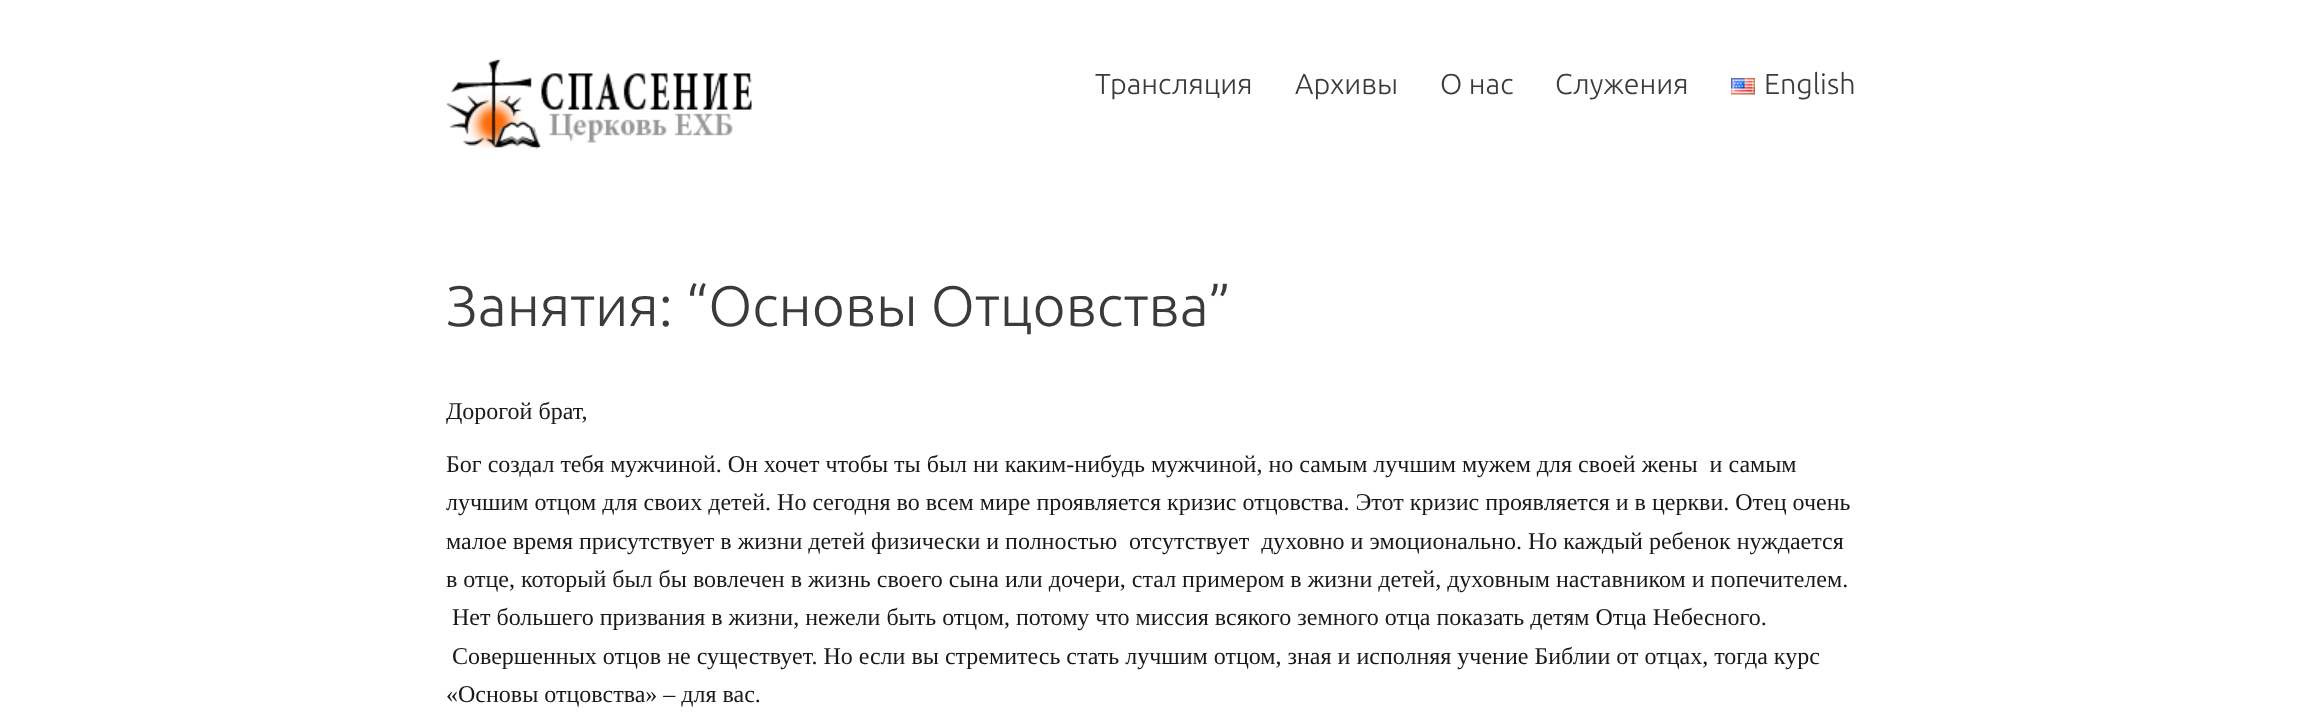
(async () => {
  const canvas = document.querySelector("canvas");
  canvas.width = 2301;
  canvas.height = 713;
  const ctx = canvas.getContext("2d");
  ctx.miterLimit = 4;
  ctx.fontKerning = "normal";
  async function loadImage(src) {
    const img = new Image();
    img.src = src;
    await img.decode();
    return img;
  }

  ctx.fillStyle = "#ffffff";
  ctx.fillRect(0, 0, 2301, 713);
  ctx.drawImage(await loadImage("img/1.png"), 446, 58, 306, 91);
  ctx.drawImage(await loadImage("img/2.png"), 1731, 78, 24, 17);
  ctx.font = "300 28.75px Ubuntu";
  ctx.fillStyle = "#3b3b3b";
  for (const [text, x, y] of [
    ["Трансляция", 1095, 94],
    ["Архивы", 1295, 94],
    ["О нас", 1440, 94],
    ["Служения", 1555, 94],
    ["English", 1764, 94],
  ]) {
    ctx.fillText(text, x, y);
  }
  ctx.font = "300 57px Ubuntu";
  ctx.fillText("Занятия: “Основы Отцовства”", 446, 326);
  ctx.font = "24px Liberation Serif";
  ctx.fillStyle = "#191919";
  for (const [text, x, y] of [
    ["Дорогой брат,", 446, 419],
    ["Бог создал тебя мужчиной. Он хочет чтобы ты был ни каким-нибудь мужчиной, но самым лучшим мужем для своей жены  и самым", 446, 472],
    ["лучшим отцом для своих детей. Но сегодня во всем мире проявляется кризис отцовства. Этот кризис проявляется и в церкви. Отец очень", 446, 510],
    ["малое время присутствует в жизни детей физически и полностью  отсутствует  духовно и эмоционально. Но каждый ребенок нуждается", 446, 549],
    ["в отце, который был бы вовлечен в жизнь своего сына или дочери, стал примером в жизни детей, духовным наставником и попечителем.", 446, 587],
    ["Нет большего призвания в жизни, нежели быть отцом, потому что миссия всякого земного отца показать детям Отца Небесного.", 452, 625],
    ["Совершенных отцов не существует. Но если вы стремитесь стать лучшим отцом, зная и исполняя учение Библии от отцах, тогда курс", 452, 664],
    ["«Основы отцовства» – для вас.", 446, 702],
  ]) {
    ctx.fillText(text, x, y);
  }
})();
